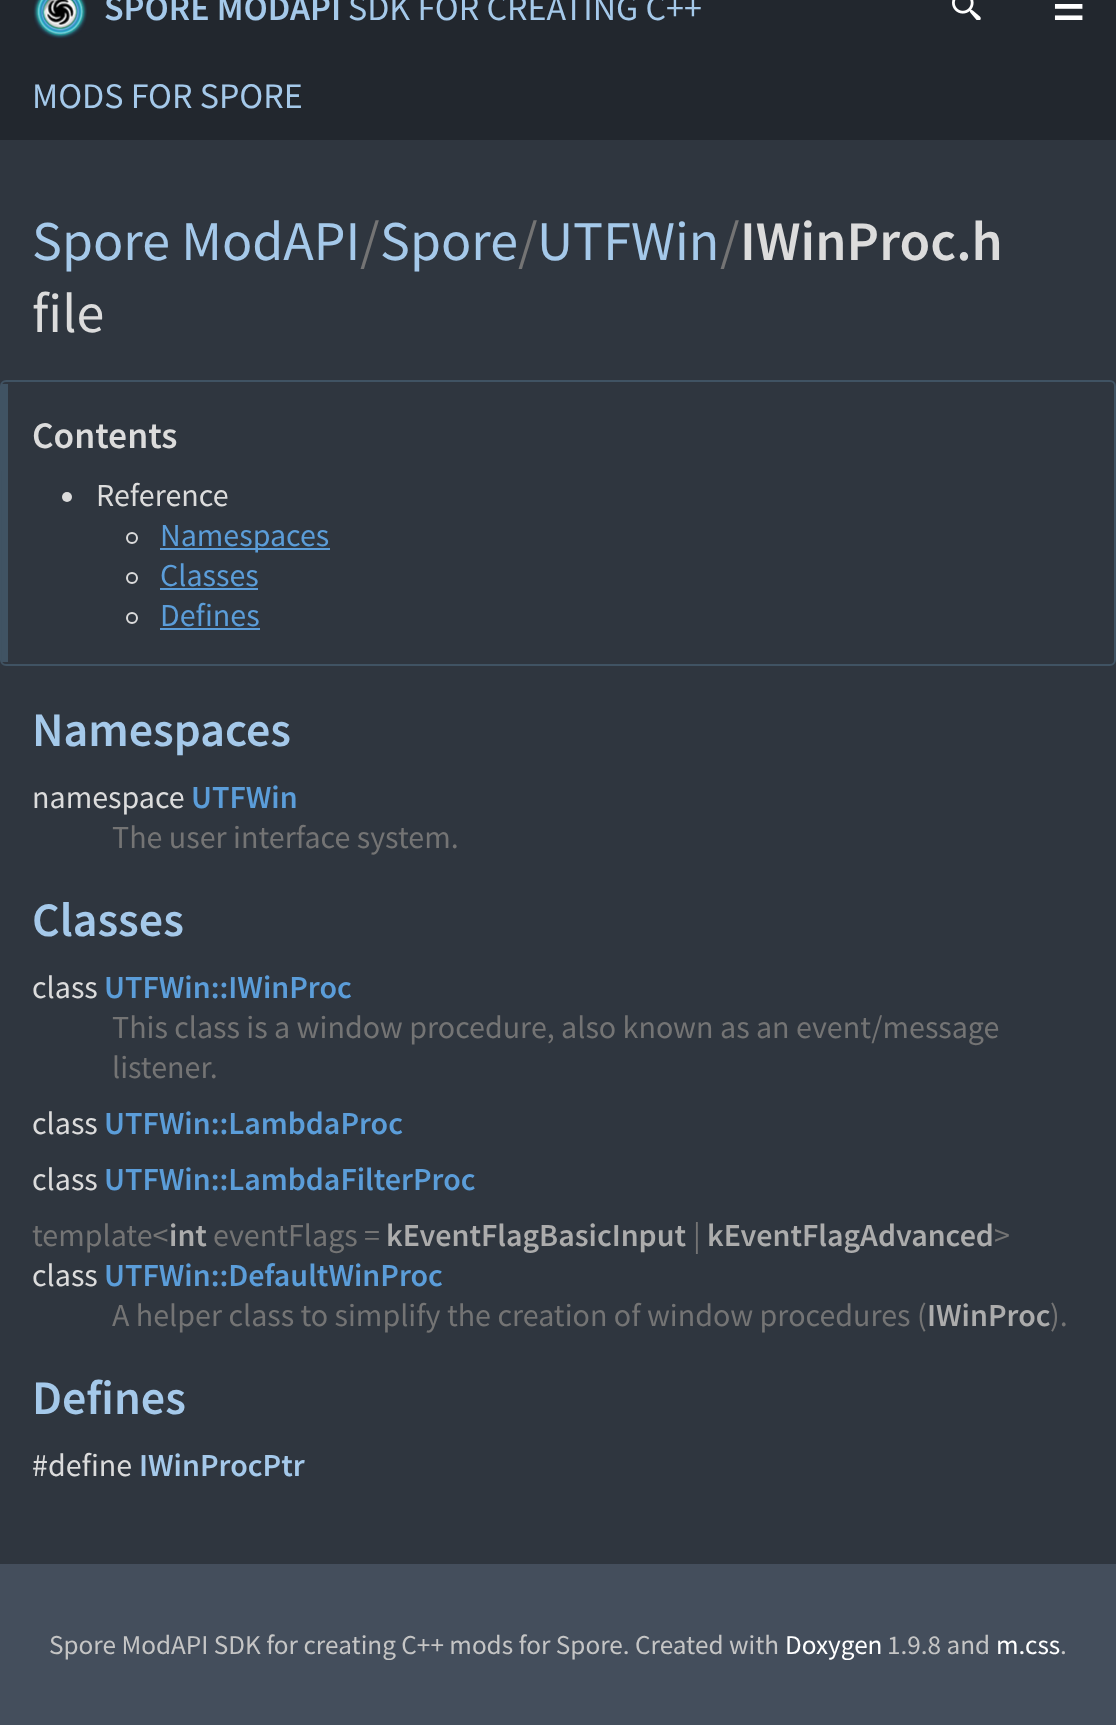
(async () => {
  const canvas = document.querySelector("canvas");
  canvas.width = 1116;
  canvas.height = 1725;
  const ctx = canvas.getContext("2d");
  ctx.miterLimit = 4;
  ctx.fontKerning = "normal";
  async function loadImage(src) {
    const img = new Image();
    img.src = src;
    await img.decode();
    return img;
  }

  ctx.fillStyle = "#2f363f";
  ctx.fillRect(0, 0, 1116, 1725);
  ctx.fillStyle = "#22272e";
  ctx.fillRect(0, 0, 1116, 140);
  ctx.drawImage(await loadImage("img/1.png"), 33, 0, 54, 39);
  ctx.drawImage(await loadImage("img/2.png"), 952, 0, 29, 20);
  ctx.beginPath();
  ctx.roundRect(1, 381, 1114, 284, 5);
  ctx.strokeStyle = "#405363";
  ctx.lineWidth = 2;
  ctx.stroke();
  ctx.fillStyle = "#405363";
  ctx.fillRect(2, 384, 6, 278);
  ctx.fillStyle = "#dcdcdc";
  ctx.beginPath();
  ctx.arc(67, 497, 5, 0, Math.PI * 2);
  ctx.fill();
  ctx.beginPath();
  ctx.arc(132, 538, 5, 0, Math.PI * 2);
  ctx.strokeStyle = "#dcdcdc";
  ctx.stroke();
  ctx.fillStyle = "#5b9dd9";
  ctx.fillRect(160, 548, 170, 2);
  ctx.beginPath();
  ctx.arc(132, 578, 5, 0, Math.PI * 2);
  ctx.stroke();
  ctx.fillRect(160, 588, 98, 2);
  ctx.beginPath();
  ctx.arc(132, 618, 5, 0, Math.PI * 2);
  ctx.stroke();
  ctx.fillRect(160, 628, 100, 2);
  ctx.fillStyle = "#444e5c";
  ctx.fillRect(0, 1564, 1116, 161);
  ctx.font = "600 36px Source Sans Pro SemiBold";
  ctx.fillStyle = "#a5c9ea";
  ctx.fillText("SPORE MODAPI", 104, 20);
  ctx.font = "36px Source Sans Pro";
  ctx.fillText("SDK FOR CREATING C++", 348, 20);
  ctx.fillText("MODS FOR SPORE", 32, 108);
  ctx.font = "bold 36px DejaVu Sans";
  ctx.fillStyle = "#ffffff";
  ctx.fillText("☰", 1052, 20);
  ctx.font = "56px Source Sans Pro";
  ctx.fillStyle = "#a5c9ea";
  ctx.fillText("Spore ModAPI", 32, 260);
  ctx.fillStyle = "#747474";
  ctx.fillText("/", 360, 260);
  ctx.fillStyle = "#a5c9ea";
  ctx.fillText("Spore", 380, 260);
  ctx.fillStyle = "#747474";
  ctx.fillText("/", 518, 260);
  ctx.fillStyle = "#a5c9ea";
  ctx.fillText("UTFWin", 537, 260);
  ctx.fillStyle = "#747474";
  ctx.fillText("/", 720, 260);
  ctx.font = "600 56px Source Sans Pro SemiBold";
  ctx.fillStyle = "#dcdcdc";
  ctx.fillText("IWinProc.h", 740, 260);
  ctx.font = "56px Source Sans Pro";
  ctx.fillText("file", 32, 332);
  ctx.font = "600 37.5px Source Sans Pro SemiBold";
  ctx.fillText("Contents", 32, 448);
  ctx.font = "32px Source Sans Pro";
  ctx.fillText("Reference", 96, 506);
  ctx.fillStyle = "#5b9dd9";
  for (const [text, x, y] of [
    ["Namespaces", 160, 546],
    ["Classes", 160, 586],
    ["Defines", 160, 626],
  ]) {
    ctx.fillText(text, x, y);
  }
  ctx.font = "600 48px Source Sans Pro SemiBold";
  ctx.fillStyle = "#a5c9ea";
  ctx.fillText("Namespaces", 32, 746);
  ctx.font = "32px Source Sans Pro";
  ctx.fillStyle = "#dcdcdc";
  ctx.fillText("namespace", 32, 808);
  ctx.font = "600 32px Source Sans Pro SemiBold";
  ctx.fillStyle = "#5b9dd9";
  ctx.fillText("UTFWin", 191, 808);
  ctx.font = "32px Source Sans Pro";
  ctx.fillStyle = "#747474";
  ctx.fillText("The user interface system.", 112, 848);
  ctx.font = "600 48px Source Sans Pro SemiBold";
  ctx.fillStyle = "#a5c9ea";
  ctx.fillText("Classes", 32, 936);
  ctx.font = "32px Source Sans Pro";
  ctx.fillStyle = "#dcdcdc";
  ctx.fillText("class", 32, 998);
  ctx.font = "600 32px Source Sans Pro SemiBold";
  ctx.fillStyle = "#5b9dd9";
  ctx.fillText("UTFWin::IWinProc", 104, 998);
  ctx.font = "32px Source Sans Pro";
  ctx.fillStyle = "#747474";
  ctx.fillText("This class is a window procedure, also known as an event/message", 112, 1038);
  ctx.fillText("listener.", 112, 1078);
  ctx.fillStyle = "#dcdcdc";
  ctx.fillText("class", 32, 1134);
  ctx.font = "600 32px Source Sans Pro SemiBold";
  ctx.fillStyle = "#5b9dd9";
  ctx.fillText("UTFWin::LambdaProc", 104, 1134);
  ctx.font = "32px Source Sans Pro";
  ctx.fillStyle = "#dcdcdc";
  ctx.fillText("class", 32, 1190);
  ctx.font = "600 32px Source Sans Pro SemiBold";
  ctx.fillStyle = "#5b9dd9";
  ctx.fillText("UTFWin::LambdaFilterProc", 104, 1190);
  ctx.font = "32px Source Sans Pro";
  ctx.fillStyle = "#747474";
  ctx.fillText("template<", 32, 1246);
  ctx.font = "600 32px Source Sans Pro SemiBold";
  ctx.fillStyle = "#acacac";
  ctx.fillText("int", 169, 1246);
  ctx.font = "32px Source Sans Pro";
  ctx.fillStyle = "#747474";
  ctx.fillText("eventFlags =", 213, 1246);
  ctx.font = "600 32px Source Sans Pro SemiBold";
  ctx.fillStyle = "#acacac";
  ctx.fillText("kEventFlagBasicInput", 386, 1246);
  ctx.font = "32px Source Sans Pro";
  ctx.fillStyle = "#747474";
  ctx.fillText("|", 693, 1246);
  ctx.font = "600 32px Source Sans Pro SemiBold";
  ctx.fillStyle = "#acacac";
  ctx.fillText("kEventFlagAdvanced", 707, 1246);
  ctx.font = "32px Source Sans Pro";
  ctx.fillStyle = "#747474";
  ctx.fillText(">", 994, 1246);
  ctx.fillStyle = "#dcdcdc";
  ctx.fillText("class", 32, 1286);
  ctx.font = "600 32px Source Sans Pro SemiBold";
  ctx.fillStyle = "#5b9dd9";
  ctx.fillText("UTFWin::DefaultWinProc", 104, 1286);
  ctx.font = "32px Source Sans Pro";
  ctx.fillStyle = "#747474";
  ctx.fillText("A helper class to simplify the creation of window procedures (", 112, 1326);
  ctx.font = "600 32px Source Sans Pro SemiBold";
  ctx.fillStyle = "#acacac";
  ctx.fillText("IWinProc", 927, 1326);
  ctx.font = "32px Source Sans Pro";
  ctx.fillStyle = "#747474";
  ctx.fillText(").", 1050, 1326);
  ctx.font = "600 48px Source Sans Pro SemiBold";
  ctx.fillStyle = "#a5c9ea";
  ctx.fillText("Defines", 32, 1414);
  ctx.font = "32px Source Sans Pro";
  ctx.fillStyle = "#dcdcdc";
  ctx.fillText("#define", 32, 1476);
  ctx.font = "600 32px Source Sans Pro SemiBold";
  ctx.fillStyle = "#a5c9ea";
  ctx.fillText("IWinProcPtr", 139, 1476);
  ctx.font = "27.2px Source Sans Pro";
  ctx.fillStyle = "#c5c5c5";
  ctx.fillText("Spore ModAPI SDK for creating C++ mods for Spore. Created with", 49, 1654);
  ctx.fillStyle = "#ffffff";
  ctx.fillText("Doxygen", 785, 1654);
  ctx.fillStyle = "#c5c5c5";
  ctx.fillText("1.9.8 and", 887, 1654);
  ctx.fillStyle = "#ffffff";
  ctx.fillText("m.css", 996, 1654);
  ctx.fillStyle = "#c5c5c5";
  ctx.fillText(".", 1060, 1654);
})();
